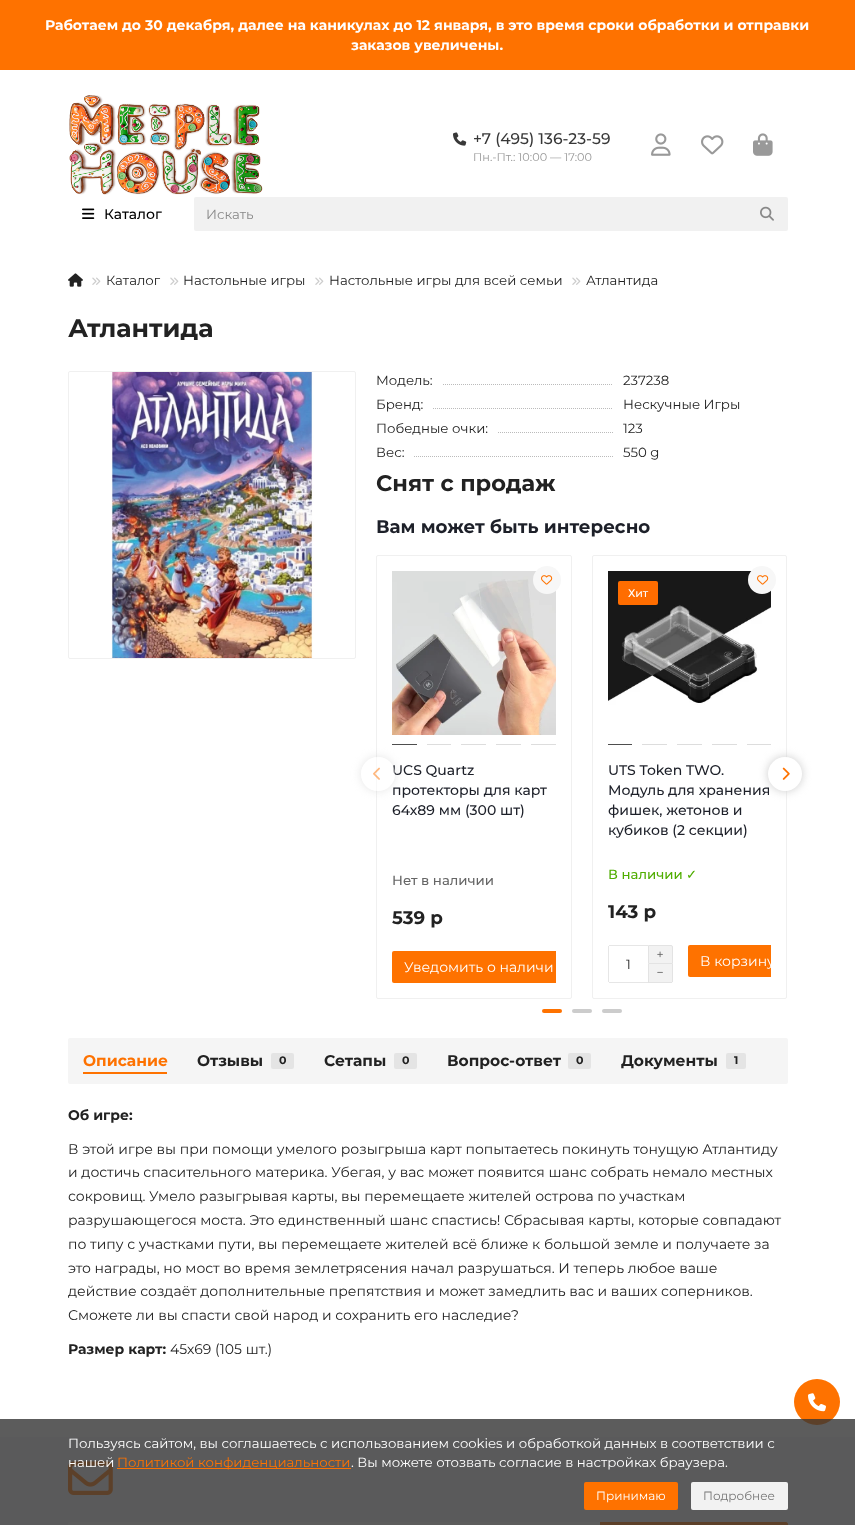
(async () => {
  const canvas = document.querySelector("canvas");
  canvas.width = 855;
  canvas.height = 1525;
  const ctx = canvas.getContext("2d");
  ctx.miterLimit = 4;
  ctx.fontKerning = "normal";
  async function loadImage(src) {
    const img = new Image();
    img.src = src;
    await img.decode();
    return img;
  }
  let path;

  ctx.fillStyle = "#ffffff";
  ctx.fillRect(0, 0, 855, 1525);
  ctx.fillStyle = "#fe7200";
  ctx.fillRect(0, 0, 855, 70);
  ctx.drawImage(await loadImage("img/1.png"), 69, 95, 194, 100);
  ctx.drawImage(await loadImage("img/2.png"), 453, 132, 14, 14);
  ctx.drawImage(await loadImage("img/3.png"), 651, 133, 20, 23);
  ctx.drawImage(await loadImage("img/4.png"), 701, 135, 23, 20);
  ctx.drawImage(await loadImage("img/5.png"), 753, 133, 20, 23);
  ctx.drawImage(await loadImage("img/6.png"), 82, 208, 13, 11);
  ctx.fillStyle = "#f1f1f1";
  ctx.beginPath();
  ctx.roundRect(194, 197, 594, 34, 2);
  ctx.fill();
  ctx.drawImage(await loadImage("img/7.png"), 760, 206, 14, 15);
  ctx.drawImage(await loadImage("img/8.png"), 68, 273, 15, 14);
  ctx.drawImage(await loadImage("img/9.png"), 92, 277, 9, 8);
  ctx.drawImage(await loadImage("img/9.png"), 170, 277, 9, 8);
  ctx.drawImage(await loadImage("img/9.png"), 315, 277, 9, 8);
  ctx.drawImage(await loadImage("img/9.png"), 572, 277, 9, 8);
  ctx.beginPath();
  ctx.roundRect(68.5, 371.5, 287, 287, 1.5);
  ctx.strokeStyle = "#f0f0f0";
  ctx.stroke();
  ctx.drawImage(await loadImage("img/10.png"), 111, 372, 203, 286);
  path = new Path2D("M443 384.5H613");
  ctx.strokeStyle = "#bbbbbb";
  ctx.setLineDash([1, 1]);
  ctx.stroke(path);
  path = new Path2D("M433 408.5H613");
  ctx.stroke(path);
  path = new Path2D("M498 432.5H613");
  ctx.stroke(path);
  path = new Path2D("M414 456.5H613");
  ctx.stroke(path);
  ctx.beginPath();
  ctx.roundRect(376.5, 555.5, 195, 443, 1.5);
  ctx.strokeStyle = "#f0f0f0";
  ctx.setLineDash([]);
  ctx.stroke();
  ctx.drawImage(await loadImage("img/11.png"), 392, 571, 164, 164);
  for (const [x, y, w, h, color] of [
    [392, 744, 25, 1, "#4e4e4e"],
    [427, 744, 24, 1, "#dddddd"],
    [461, 744, 25, 1, "#dddddd"],
    [496, 744, 25, 1, "#dddddd"],
    [531, 744, 25, 1, "#dddddd"],
  ]) {
    ctx.fillStyle = color;
    ctx.fillRect(x, y, w, h);
  }
  ctx.fillStyle = "#f7f7f7";
  ctx.beginPath();
  ctx.arc(547, 580, 14, 0, Math.PI * 2);
  ctx.fill();
  ctx.drawImage(await loadImage("img/12.png"), 541, 575, 12, 10);
  ctx.fillStyle = "#fe7200";
  ctx.beginPath();
  ctx.roundRect(392, 951, 164, 32, [2, 0, 0, 2]);
  ctx.fill();
  ctx.beginPath();
  ctx.roundRect(592.5, 555.5, 194, 443, 1.5);
  ctx.stroke();
  ctx.drawImage(await loadImage("img/13.png"), 608, 571, 163, 134);
  for (const [x, y, w, h, color] of [
    [608, 744, 24, 1, "#4e4e4e"],
    [642, 744, 25, 1, "#dddddd"],
    [677, 744, 25, 1, "#dddddd"],
    [712, 744, 25, 1, "#dddddd"],
    [747, 744, 24, 1, "#dddddd"],
  ]) {
    ctx.fillStyle = color;
    ctx.fillRect(x, y, w, h);
  }
  ctx.fillStyle = "#ff6d00";
  ctx.beginPath();
  ctx.roundRect(618, 581, 40, 24, 2);
  ctx.fill();
  ctx.fillStyle = "#f7f7f7";
  ctx.beginPath();
  ctx.arc(762, 580, 14, 0, Math.PI * 2);
  ctx.fill();
  ctx.drawImage(await loadImage("img/12.png"), 757, 575, 12, 10);
  for (const [x, y, w, h, color] of [
    [609, 945, 39, 1, "#e6e6e6"],
    [609, 982, 39, 1, "#e6e6e6"],
    [608, 946, 1, 36, "#e6e6e6"],
  ]) {
    ctx.fillStyle = color;
    ctx.fillRect(x, y, w, h);
  }
  ctx.fillStyle = "#f2f2f2";
  ctx.beginPath();
  ctx.roundRect(648.5, 945.5, 24, 18, [0, 1.5, 0, 0]);
  ctx.fill();
  ctx.strokeStyle = "#e3e3e3";
  ctx.stroke();
  ctx.drawImage(await loadImage("img/14.png"), 657, 951, 6, 7);
  ctx.beginPath();
  ctx.roundRect(648, 964, 25, 19, [0, 0, 2, 0]);
  ctx.fill();
  for (const [x, y, w, h, color] of [
    [672, 964, 1, 18, "#e3e3e3"],
    [648, 982, 24, 1, "#e3e3e3"],
    [648, 964, 1, 19, "#e3e3e3"],
  ]) {
    ctx.fillStyle = color;
    ctx.fillRect(x, y, w, h);
  }
  ctx.drawImage(await loadImage("img/15.png"), 657, 971, 6, 2);
  ctx.fillStyle = "#fe7200";
  ctx.beginPath();
  ctx.roundRect(688, 945, 83, 32, [2, 0, 0, 2]);
  ctx.fill();
  ctx.save();
  path = new Path2D("M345 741H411V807H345ZM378 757C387.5 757 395 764.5 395 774C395 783.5 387.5 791 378 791C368.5 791 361 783.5 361 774C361 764.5 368.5 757 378 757Z");
  ctx.clip(path, "evenodd");
  ctx.fillStyle = "rgba(204, 204, 204, 0.5)";
  ctx.filter = "blur(5px)";
  ctx.beginPath();
  ctx.roundRect(361, 757, 34, 34, 17);
  ctx.fill();
  ctx.filter = "none";
  ctx.restore();
  ctx.fillStyle = "#cccccc";
  ctx.filter = "blur(5px)";
  ctx.beginPath();
  ctx.roundRect(768, 757, 34, 34, 17);
  ctx.fill();
  ctx.filter = "none";
  ctx.fillStyle = "#fe7200";
  ctx.beginPath();
  ctx.roundRect(542, 1009, 20, 4, 2);
  ctx.fill();
  ctx.fillStyle = "#cccccc";
  ctx.beginPath();
  ctx.roundRect(572, 1009, 20, 4, 2);
  ctx.fill();
  ctx.beginPath();
  ctx.roundRect(602, 1009, 20, 4, 2);
  ctx.fill();
  ctx.fillStyle = "#f5f5f5";
  ctx.beginPath();
  ctx.roundRect(68, 1038, 720, 46, 2);
  ctx.fill();
  ctx.fillStyle = "#fe7200";
  ctx.fillRect(83, 1072, 84, 2);
  ctx.fillStyle = "#e4e4e4";
  ctx.beginPath();
  ctx.roundRect(271, 1053, 23, 16, 2);
  ctx.fill();
  ctx.beginPath();
  ctx.roundRect(394, 1053, 23, 16, 2);
  ctx.fill();
  ctx.beginPath();
  ctx.roundRect(568, 1053, 23, 16, 2);
  ctx.fill();
  ctx.beginPath();
  ctx.roundRect(726, 1053, 20, 16, 2);
  ctx.fill();
  ctx.fillStyle = "#fe7200";
  ctx.beginPath();
  ctx.arc(817, 1402, 23, 0, Math.PI * 2);
  ctx.fill();
  ctx.drawImage(await loadImage("img/18.png"), 808, 1393, 18, 19);
  ctx.fillStyle = "#f6f6f7";
  ctx.fillRect(0, 1437, 855, 88);
  ctx.drawImage(await loadImage("img/19.png"), 68, 1461, 45, 34);
  ctx.fillStyle = "#ffffff";
  path = new Path2D("M70 1522H600V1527H70C69 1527 68 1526 68 1525V1524C68 1523 69 1522 70 1522Z");
  ctx.fill(path);
  ctx.fillStyle = "#fe7200";
  path = new Path2D("M600 1522H786C787 1522 788 1523 788 1524V1525C788 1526 787 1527 786 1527H600Z");
  ctx.fill(path);
  ctx.fillStyle = "rgba(51, 51, 51, 0.8)";
  ctx.fillRect(0, 1419, 855, 106);
  ctx.fillStyle = "#fe7200";
  ctx.fillRect(117, 1468, 234, 1);
  ctx.beginPath();
  ctx.roundRect(584, 1482, 94, 28, 2);
  ctx.fill();
  ctx.fillStyle = "#f2f2f2";
  ctx.beginPath();
  ctx.roundRect(691, 1482, 97, 28, 2);
  ctx.fill();
  ctx.font = "bold 14px Montserrat";
  ctx.fillStyle = "#ffffff";
  ctx.fillText("Работаем до 30 декабря, далее на каникулах до 12 января, в это время сроки обработки и отправки", 45, 30);
  ctx.fillText("заказов увеличены.", 351, 50);
  ctx.font = "500 15.5px Montserrat";
  ctx.fillStyle = "#383838";
  ctx.fillText("+7 (495) 136-23-59", 473, 144);
  ctx.font = "11.25px Montserrat";
  ctx.fillStyle = "#999999";
  ctx.fillText("Пн.-Пт.: 10:00 — 17:00", 473, 161);
  ctx.font = "500 14px Montserrat";
  ctx.fillStyle = "#000000";
  ctx.fillText("Каталог", 104, 219);
  ctx.font = "13.3px Montserrat";
  ctx.fillStyle = "#888888";
  ctx.fillText("Искать", 206, 219);
  ctx.fillStyle = "#222222";
  for (const [text, x, y] of [
    ["Каталог", 106, 285],
    ["Настольные игры", 183, 285],
    ["Настольные игры для всей семьи", 329, 285],
    ["Атлантида", 586, 285],
  ]) {
    ctx.fillText(text, x, y);
  }
  ctx.font = "bold 25.25px Montserrat";
  ctx.fillText("Атлантида", 68, 337);
  ctx.font = "13.3px Montserrat";
  for (const [text, x, y] of [
    ["Модель:", 376, 385],
    ["237238", 623, 385],
    ["Бренд:", 376, 409],
    ["Нескучные Игры", 623, 409],
    ["Победные очки:", 376, 433],
    ["123", 623, 433],
    ["Вес:", 376, 457],
    ["550 g", 623, 457],
  ]) {
    ctx.fillText(text, x, y);
  }
  ctx.font = "bold 22.5px Montserrat";
  ctx.fillText("Снят с продаж", 376, 491);
  ctx.font = "bold 18.25px Montserrat";
  ctx.fillStyle = "#1d2029";
  ctx.fillText("Вам может быть интересно", 376, 533);
  ctx.font = "500 14px Montserrat";
  for (const [text, x, y] of [
    ["UCS Quartz", 392, 775],
    ["протекторы для карт", 392, 795],
    ["64х89 мм (300 шт)", 392, 815],
  ]) {
    ctx.fillText(text, x, y);
  }
  ctx.font = "500 13.3px Montserrat";
  ctx.fillStyle = "#666666";
  ctx.fillText("Нет в наличии", 392, 885);
  ctx.font = "bold 18.25px Montserrat";
  ctx.fillStyle = "#222222";
  ctx.fillText("539 р", 392, 924);
  ctx.font = "14px Montserrat";
  ctx.fillStyle = "#ffffff";
  ctx.fillText("Уведомить о наличи", 404, 972);
  ctx.font = "500 11px Montserrat";
  ctx.fillText("Хит", 628, 597);
  ctx.font = "500 14px Montserrat";
  ctx.fillStyle = "#1d2029";
  for (const [text, x, y] of [
    ["UTS Token TWO.", 608, 775],
    ["Модуль для хранения", 608, 795],
    ["фишек, жетонов и", 608, 815],
    ["кубиков (2 секции)", 608, 835],
  ]) {
    ctx.fillText(text, x, y);
  }
  ctx.font = "500 13.3px Montserrat";
  ctx.fillStyle = "#4fad00";
  ctx.fillText("В наличии", 608, 879);
  ctx.font = "13.3px DejaVu Sans";
  ctx.fillText("✓", 686, 879);
  ctx.save();
  ctx.beginPath();
  ctx.rect(608, 760, 163, 223);
  ctx.clip();
  ctx.font = "bold 18.25px Montserrat";
  ctx.fillStyle = "#222222";
  ctx.fillText("143 р", 608, 918);
  ctx.restore();
  ctx.font = "13.3px Montserrat";
  ctx.fillStyle = "#222222";
  ctx.fillText("1", 626, 969);
  ctx.save();
  ctx.beginPath();
  ctx.rect(608, 760, 163, 223);
  ctx.clip();
  ctx.font = "14px Montserrat";
  ctx.fillStyle = "#ffffff";
  ctx.fillText("В корзину", 700, 966);
  ctx.restore();
  ctx.fillStyle = "rgba(255, 255, 255, 0.5)";
  ctx.beginPath();
  ctx.arc(378, 774, 17, 0, Math.PI * 2);
  ctx.fill();
  ctx.drawImage(await loadImage("img/16.png"), 373, 767, 7, 13);
  ctx.fillStyle = "#ffffff";
  ctx.beginPath();
  ctx.arc(785, 774, 17, 0, Math.PI * 2);
  ctx.fill();
  ctx.drawImage(await loadImage("img/17.png"), 782, 767, 8, 13);
  ctx.font = "bold 15.5px Montserrat";
  ctx.fillStyle = "#fe7200";
  ctx.fillText("Описание", 83, 1066);
  ctx.fillStyle = "#222222";
  ctx.fillText("Отзывы", 197, 1066);
  ctx.font = "bold 11px Montserrat";
  ctx.fillText("0", 279, 1064);
  ctx.font = "bold 15.5px Montserrat";
  ctx.fillText("Сетапы", 324, 1066);
  ctx.font = "bold 11px Montserrat";
  ctx.fillText("0", 402, 1064);
  ctx.font = "bold 15.5px Montserrat";
  ctx.fillText("Вопрос-ответ", 447, 1066);
  ctx.font = "bold 11px Montserrat";
  ctx.fillText("0", 576, 1064);
  ctx.font = "bold 15.5px Montserrat";
  ctx.fillText("Документы", 621, 1066);
  ctx.font = "bold 11px Montserrat";
  ctx.fillText("1", 734, 1064);
  ctx.font = "bold 14px Montserrat";
  ctx.fillText("Об игре:", 68, 1120);
  ctx.font = "14px Montserrat";
  for (const [text, x, y] of [
    ["В этой игре вы при помощи умелого розыгрыша карт попытаетесь покинуть тонущую Атлантиду", 68, 1154],
    ["и достичь спасительного материка. Убегая, у вас может появится шанс собрать немало местных", 68, 1177],
    ["сокровищ. Умело разыгрывая карты, вы перемещаете жителей острова по участкам", 68, 1201],
    ["разрушающегося моста. Это единственный шанс спастись! Сбрасывая карты, которые совпадают", 68, 1225],
    ["по типу с участками пути, вы перемещаете жителей всё ближе к большой земле и получаете за", 68, 1249],
    ["это награды, но мост во время землетрясения начал разрушаться. И теперь любое ваше", 68, 1273],
    ["действие создаёт дополнительные препятствия и может замедлить вас и ваших соперников.", 68, 1296],
    ["Сможете ли вы спасти свой народ и сохранить его наследие?", 68, 1320],
  ]) {
    ctx.fillText(text, x, y);
  }
  ctx.font = "bold 14px Montserrat";
  ctx.fillText("Размер карт:", 68, 1354);
  ctx.font = "14px Montserrat";
  ctx.fillText("45х69 (105 шт.)", 170, 1354);
  ctx.font = "13.3px Montserrat";
  ctx.fillStyle = "#ffffff";
  ctx.fillText("Пользуясь сайтом, вы соглашаетесь с использованием cookies и обработкой данных в соответствии с", 68, 1448);
  ctx.fillText("нашей", 68, 1467);
  ctx.fillStyle = "#fe7200";
  ctx.fillText("Политикой конфиденциальности", 117, 1467);
  ctx.fillStyle = "#ffffff";
  ctx.fillText(". Вы можете отозвать согласие в настройках браузера.", 351, 1467);
  ctx.font = "12px Montserrat";
  ctx.fillText("Принимаю", 596, 1500);
  ctx.fillStyle = "#777777";
  ctx.fillText("Подробнее", 703, 1500);
})();
